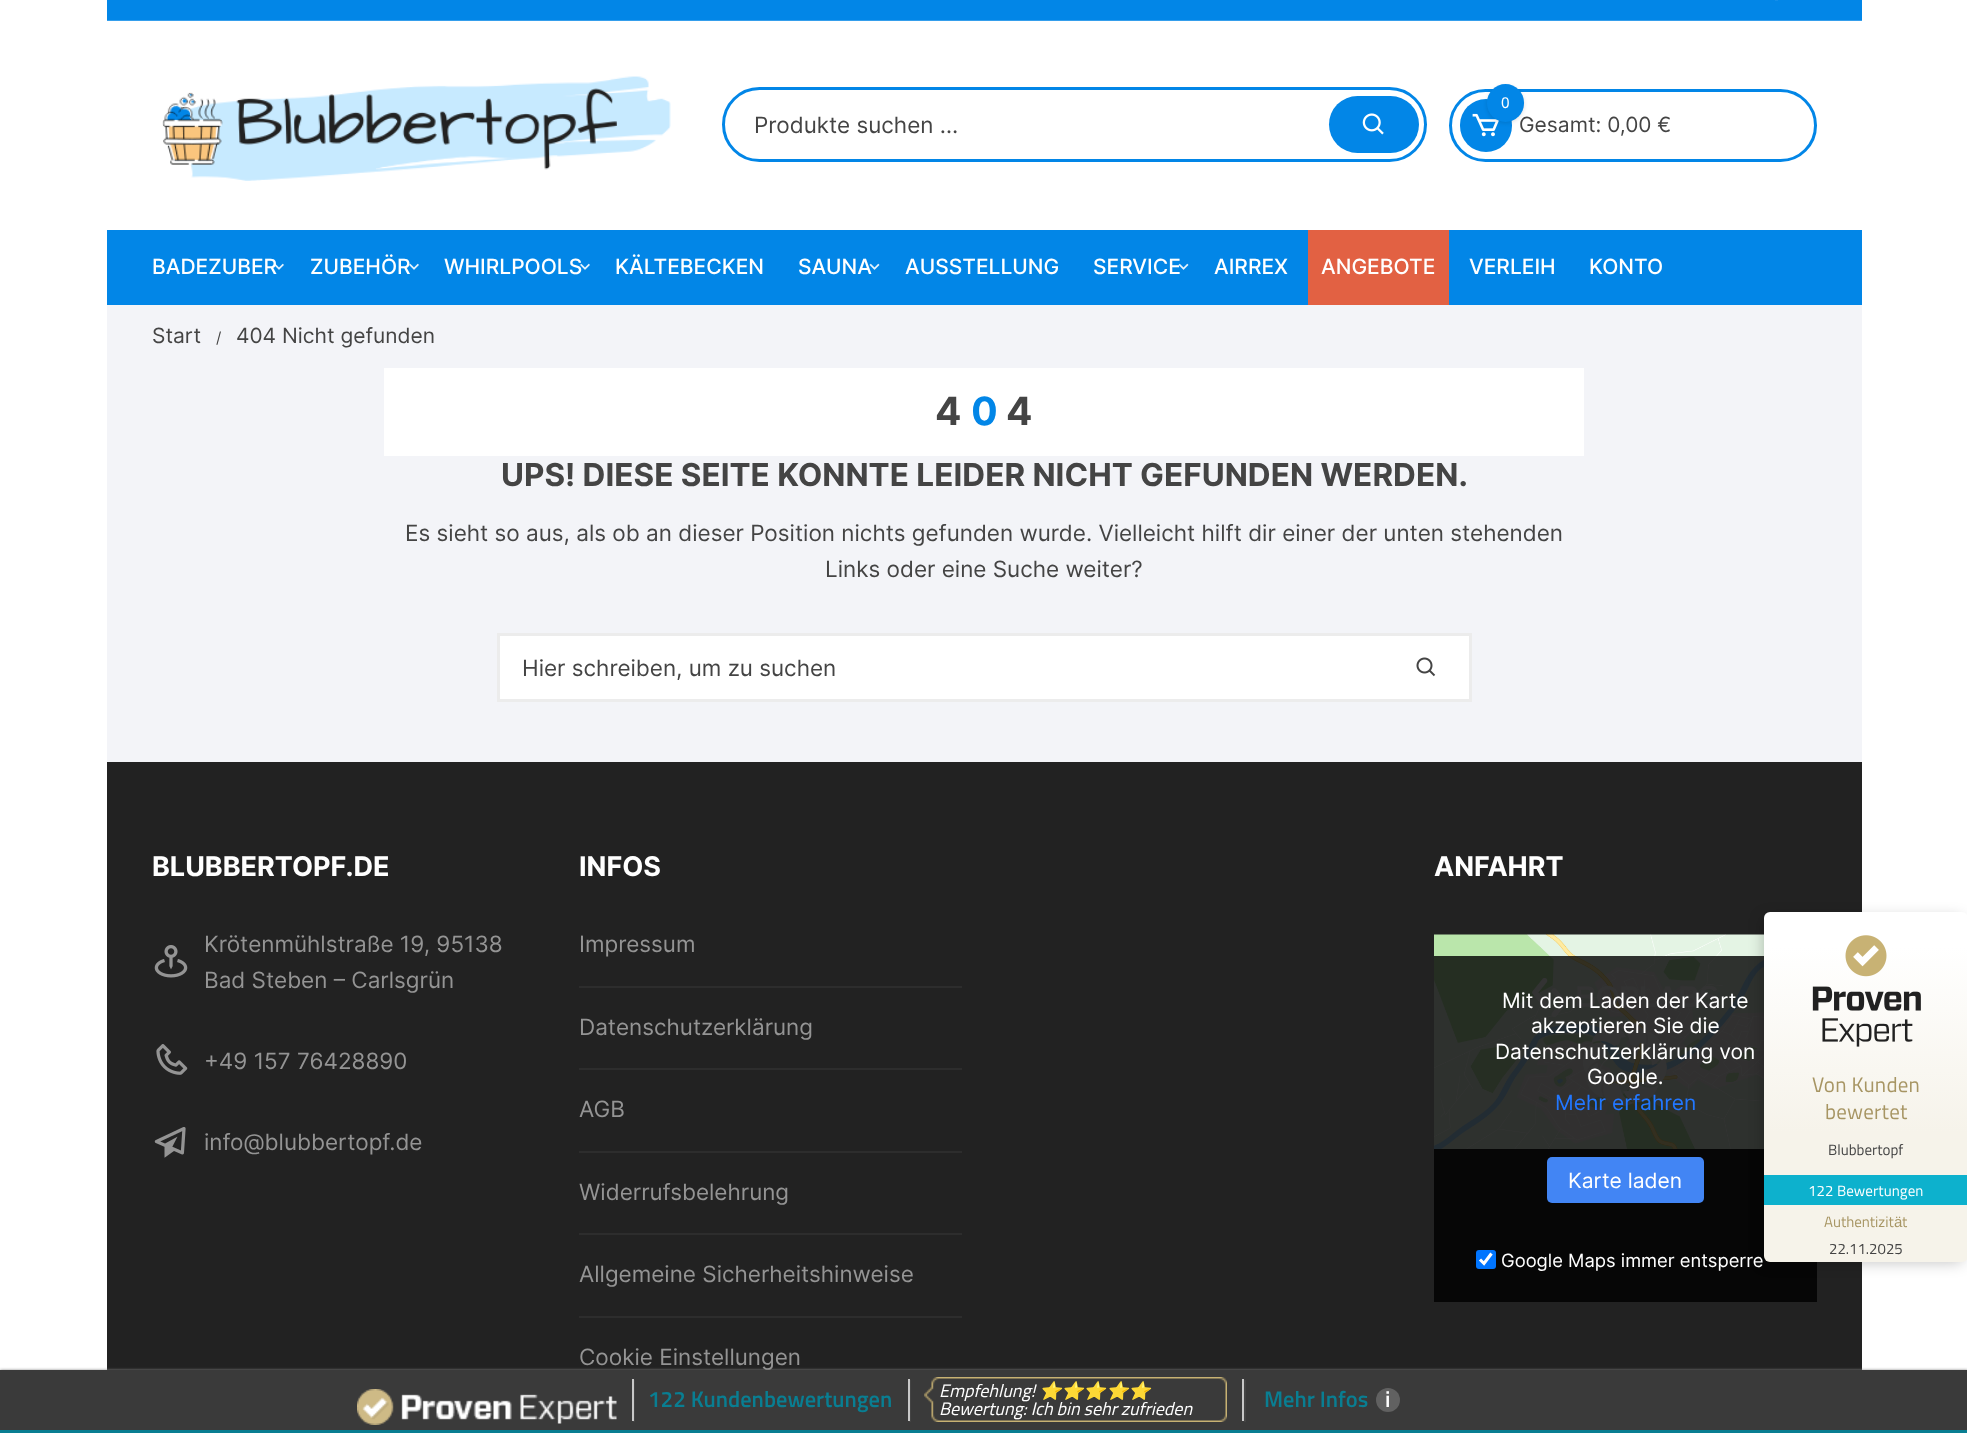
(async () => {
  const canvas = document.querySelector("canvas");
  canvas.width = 1967;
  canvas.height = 1433;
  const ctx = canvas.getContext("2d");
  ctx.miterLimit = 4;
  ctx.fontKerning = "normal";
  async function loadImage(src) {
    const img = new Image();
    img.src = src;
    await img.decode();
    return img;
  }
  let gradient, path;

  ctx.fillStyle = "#ffffff";
  ctx.fillRect(0, 0, 1967, 1433);
  for (const [x, y, w, h, color] of [
    [107, 305, 1755, 457, "#f3f4f8"],
    [107, 0, 1755, 20, "#0286e7"],
    [107, 20, 1755, 1, "#359eec"],
    [1775, 0, 3, 1, "#148ee9"],
  ]) {
    ctx.fillStyle = color;
    ctx.fillRect(x, y, w, h);
  }
  ctx.drawImage(await loadImage("img/1.png"), 162, 76, 509, 105);
  ctx.beginPath();
  ctx.roundRect(723.5, 88.5, 702, 72, 36);
  ctx.strokeStyle = "#0286e7";
  ctx.lineWidth = 3;
  ctx.stroke();
  ctx.fillStyle = "#0286e7";
  ctx.beginPath();
  ctx.roundRect(1329, 96, 90, 57, 28.5);
  ctx.fill();
  ctx.drawImage(await loadImage("img/2.png"), 1362, 113, 22, 22);
  ctx.beginPath();
  ctx.roundRect(1450.5, 90.5, 365, 70, 35);
  ctx.stroke();
  ctx.beginPath();
  ctx.roundRect(1460, 99, 52, 53, 26);
  ctx.fill();
  ctx.drawImage(await loadImage("img/3.png"), 1472, 113, 27, 24);
  ctx.fillStyle = "rgba(0, 0, 0, 0.13)";
  ctx.filter = "blur(2px)";
  ctx.beginPath();
  ctx.roundRect(1487, 86, 37, 37, 18.5);
  ctx.fill();
  ctx.filter = "none";
  for (const [x, y, w, h, color] of [
    [107, 230, 1755, 75, "#0286e7"],
    [1308, 230, 141, 75, "#e26143"],
    [384, 368, 1200, 88, "#ffffff"],
  ]) {
    ctx.fillStyle = color;
    ctx.fillRect(x, y, w, h);
  }
  ctx.beginPath();
  ctx.rect(498.5, 634.5, 972, 66);
  ctx.fill();
  ctx.strokeStyle = "#ececec";
  ctx.stroke();
  ctx.drawImage(await loadImage("img/9.png"), 1416, 657, 20, 20);
  ctx.fillStyle = "#222222";
  ctx.fillRect(107, 762, 1755, 608);
  ctx.drawImage(await loadImage("img/10.png"), 154, 945, 34, 33);
  ctx.drawImage(await loadImage("img/11.png"), 156, 1044, 32, 31);
  ctx.drawImage(await loadImage("img/12.png"), 154, 1127, 32, 31);
  for (const [x, y, w, h, color] of [
    [579, 986, 383, 2, "#2d2d2d"],
    [579, 1068, 383, 2, "#2d2d2d"],
    [579, 1151, 383, 2, "#2d2d2d"],
    [579, 1233, 383, 2, "#2d2d2d"],
    [579, 1316, 383, 2, "#2d2d2d"],
  ]) {
    ctx.fillStyle = color;
    ctx.fillRect(x, y, w, h);
  }
  ctx.drawImage(await loadImage("img/13.png"), 1434, 934, 330, 215);
  ctx.fillStyle = "rgba(0, 0, 0, 0.8)";
  ctx.fillRect(1434, 956, 383, 346);
  ctx.fillStyle = "#4285f4";
  ctx.beginPath();
  ctx.roundRect(1547, 1157, 157, 46, 5);
  ctx.fill();
  ctx.fillStyle = "#0075ff";
  ctx.beginPath();
  ctx.roundRect(1476, 1250, 20, 19, 3);
  ctx.fill();
  path = new Path2D("M1480 1259.5L1484 1263.5L1491.5 1253.5");
  ctx.strokeStyle = "#ffffff";
  ctx.lineWidth = 3.1;
  ctx.stroke(path);
  ctx.fillStyle = "#888888";
  ctx.filter = "blur(1.5px)";
  ctx.beginPath();
  ctx.rect(0, 1370, 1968, 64);
  ctx.fill();
  ctx.filter = "none";
  ctx.fillStyle = "#3a3a3a";
  ctx.fillRect(0, 1370, 1967, 60);
  ctx.drawImage(await loadImage("img/14.png"), 357, 1389, 260, 36);
  for (const [x, y, w, h, color] of [
    [633, 1380, 2, 42, "#444444"],
    [632, 1379, 2, 42, "#c7c7c7"],
    [909, 1380, 2, 42, "#444444"],
    [908, 1379, 2, 42, "#c7c7c7"],
  ]) {
    ctx.fillStyle = color;
    ctx.fillRect(x, y, w, h);
  }
  ctx.drawImage(await loadImage("img/15.png"), 924, 1377, 303, 45);
  ctx.fillStyle = "#444444";
  ctx.fillRect(1244, 1380, 2, 42);
  ctx.fillStyle = "#c7c7c7";
  ctx.fillRect(1242, 1379, 2, 42);
  ctx.fillStyle = "#616161";
  ctx.beginPath();
  ctx.arc(1388, 1400, 12, 0, Math.PI * 2);
  ctx.fill();
  ctx.fillStyle = "#097e92";
  ctx.fillRect(0, 1430, 1967, 3);
  ctx.fillStyle = "rgba(0, 0, 0, 0.25)";
  ctx.filter = "blur(7.5px)";
  ctx.beginPath();
  ctx.roundRect(1764, 918, 198, 344, 3);
  ctx.fill();
  ctx.filter = "none";
  gradient = ctx.createLinearGradient(1866, 1262, 1866, 912);
  gradient.addColorStop(0.37, "#f6f3ea");
  gradient.addColorStop(0.9, "#ffffff");
  ctx.fillStyle = gradient;
  ctx.beginPath();
  ctx.roundRect(1764, 912, 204, 350, 6);
  ctx.fill();
  ctx.drawImage(await loadImage("img/16.png"), 1812, 935, 109, 112);
  ctx.fillStyle = "#0db1cd";
  ctx.fillRect(1764, 1175, 203, 30);
  ctx.font = "22.5px Inter";
  ctx.fillStyle = "#444444";
  ctx.fillText("Produkte suchen …", 754, 133);
  ctx.font = "21px Inter";
  ctx.fillText("Gesamt: 0,00 €", 1519, 132);
  ctx.fillStyle = "#0286e7";
  ctx.beginPath();
  ctx.roundRect(1487, 84, 37, 38, 18.5);
  ctx.fill();
  ctx.font = "15px Noto Sans";
  ctx.fillStyle = "#ffffff";
  ctx.fillText("0", 1501, 108);
  ctx.font = "500 21px Inter";
  ctx.fillText("BADEZUBER", 152, 274);
  ctx.drawImage(await loadImage("img/4.png"), 275, 263, 9, 7);
  ctx.fillText("ZUBEHÖR", 310, 274);
  ctx.drawImage(await loadImage("img/5.png"), 409, 263, 10, 7);
  ctx.fillText("WHIRLPOOLS", 444, 274);
  ctx.drawImage(await loadImage("img/6.png"), 580, 263, 10, 7);
  ctx.fillText("KÄLTEBECKEN", 615, 274);
  ctx.fillText("SAUNA", 798, 274);
  ctx.drawImage(await loadImage("img/7.png"), 869, 263, 11, 7);
  ctx.fillText("AUSSTELLUNG", 905, 274);
  ctx.fillText("SERVICE", 1093, 274);
  ctx.drawImage(await loadImage("img/8.png"), 1178, 263, 11, 7);
  for (const [text, x, y] of [
    ["AIRREX", 1214, 274],
    ["ANGEBOTE", 1321, 274],
    ["VERLEIH", 1469, 274],
    ["KONTO", 1589, 274],
  ]) {
    ctx.fillText(text, x, y);
  }
  ctx.font = "21px Inter";
  ctx.fillStyle = "#444444";
  ctx.fillText("Start", 152, 343);
  ctx.font = "15px Inter";
  ctx.fillText("/", 216, 343);
  ctx.font = "21px Inter";
  ctx.fillText("404 Nicht gefunden", 236, 343);
  ctx.font = "bold 39px Inter";
  ctx.fillText("4", 935, 425);
  ctx.fillStyle = "#0286e7";
  ctx.fillText("0", 971, 425);
  ctx.fillStyle = "#444444";
  ctx.fillText("4", 1006, 425);
  ctx.font = "bold 31.5px Inter";
  ctx.fillText("UPS! DIESE SEITE KONNTE LEIDER NICHT GEFUNDEN WERDEN.", 501, 486);
  ctx.font = "22.5px Inter";
  for (const [text, x, y] of [
    ["Es sieht so aus, als ob an dieser Position nichts gefunden wurde. Vielleicht hilft dir einer der unten stehenden", 405, 541],
    ["Links oder eine Suche weiter?", 825, 577],
    ["Hier schreiben, um zu suchen", 522, 676],
  ]) {
    ctx.fillText(text, x, y);
  }
  ctx.font = "bold 27px Inter";
  ctx.fillStyle = "#ffffff";
  ctx.fillText("BLUBBERTOPF.DE", 152, 876);
  ctx.font = "22.5px Inter";
  ctx.fillStyle = "#949494";
  for (const [text, x, y] of [
    ["Krötenmühlstraße 19, 95138", 204, 952],
    ["Bad Steben – Carlsgrün", 204, 988],
    ["+49 157 76428890", 204, 1069],
    ["info@blubbertopf.de", 204, 1150],
  ]) {
    ctx.fillText(text, x, y);
  }
  ctx.font = "bold 27px Inter";
  ctx.fillStyle = "#ffffff";
  ctx.fillText("INFOS", 579, 876);
  ctx.font = "22.5px Inter";
  ctx.fillStyle = "#949494";
  for (const [text, x, y] of [
    ["Impressum", 579, 952],
    ["Datenschutzerklärung", 579, 1035],
    ["AGB", 579, 1117],
    ["Widerrufsbelehrung", 579, 1200],
    ["Allgemeine Sicherheitshinweise", 579, 1282],
    ["Cookie Einstellungen", 579, 1365],
  ]) {
    ctx.fillText(text, x, y);
  }
  ctx.font = "bold 27px Inter";
  ctx.fillStyle = "#ffffff";
  ctx.fillText("ANFAHRT", 1434, 876);
  ctx.font = "21px Inter";
  for (const [text, x, y] of [
    ["Mit dem Laden der Karte", 1502, 1008],
    ["akzeptieren Sie die", 1531, 1033],
    ["Datenschutzerklärung von", 1495, 1059],
    ["Google.", 1587, 1084],
  ]) {
    ctx.fillText(text, x, y);
  }
  ctx.fillStyle = "#2277ff";
  ctx.fillText("Mehr erfahren", 1555, 1110);
  ctx.fillStyle = "#ffffff";
  ctx.fillText("Karte laden", 1568, 1188);
  ctx.font = "18.4px Inter";
  ctx.fillText("Google Maps immer entsperre", 1501, 1267);
  ctx.font = "600 22.5px Titillium Web";
  ctx.fillStyle = "#097e92";
  ctx.fillText("122 Kundenbewertungen", 648, 1407);
  ctx.font = "italic 18px Titillium Web";
  ctx.fillStyle = "#ffffff";
  ctx.fillText("Empfehlung!", 939, 1397);
  ctx.font = "italic 18px Noto Color Emoji";
  ctx.fillText("⭐️⭐️⭐️⭐️⭐️", 1039, 1397);
  ctx.font = "italic 18px Titillium Web";
  ctx.fillText("Bewertung: Ich bin sehr zufrieden", 939, 1415);
  ctx.font = "600 22.5px Titillium Web";
  ctx.fillStyle = "#097e92";
  ctx.fillText("Mehr Infos", 1264, 1407);
  ctx.fillStyle = "#ffffff";
  ctx.fillText("i", 1385, 1407);
  ctx.letterSpacing = "0.25px";
  ctx.font = "21px Titillium Web";
  ctx.fillStyle = "#a79563";
  ctx.fillText("Von Kunden", 1812, 1092);
  ctx.fillText("bewertet", 1825, 1119);
  ctx.letterSpacing = "0px";
  ctx.font = "15px Titillium Web";
  ctx.fillStyle = "#444444";
  ctx.fillText("Blubbertopf", 1828, 1155);
  ctx.letterSpacing = "0.1px";
  ctx.fillStyle = "#ffffff";
  ctx.fillText("122 Bewertungen", 1808, 1196);
  ctx.letterSpacing = "0px";
  ctx.fillStyle = "#a79563";
  ctx.fillText("Authentizit", 1824, 1227);
  ctx.font = "15px Liberation Sans";
  ctx.fillText("ä", 1894, 1227);
  ctx.font = "15px Titillium Web";
  ctx.fillText("t", 1902, 1227);
  ctx.fillStyle = "#444444";
  ctx.fillText("22.11.2025", 1829, 1254);
})();
